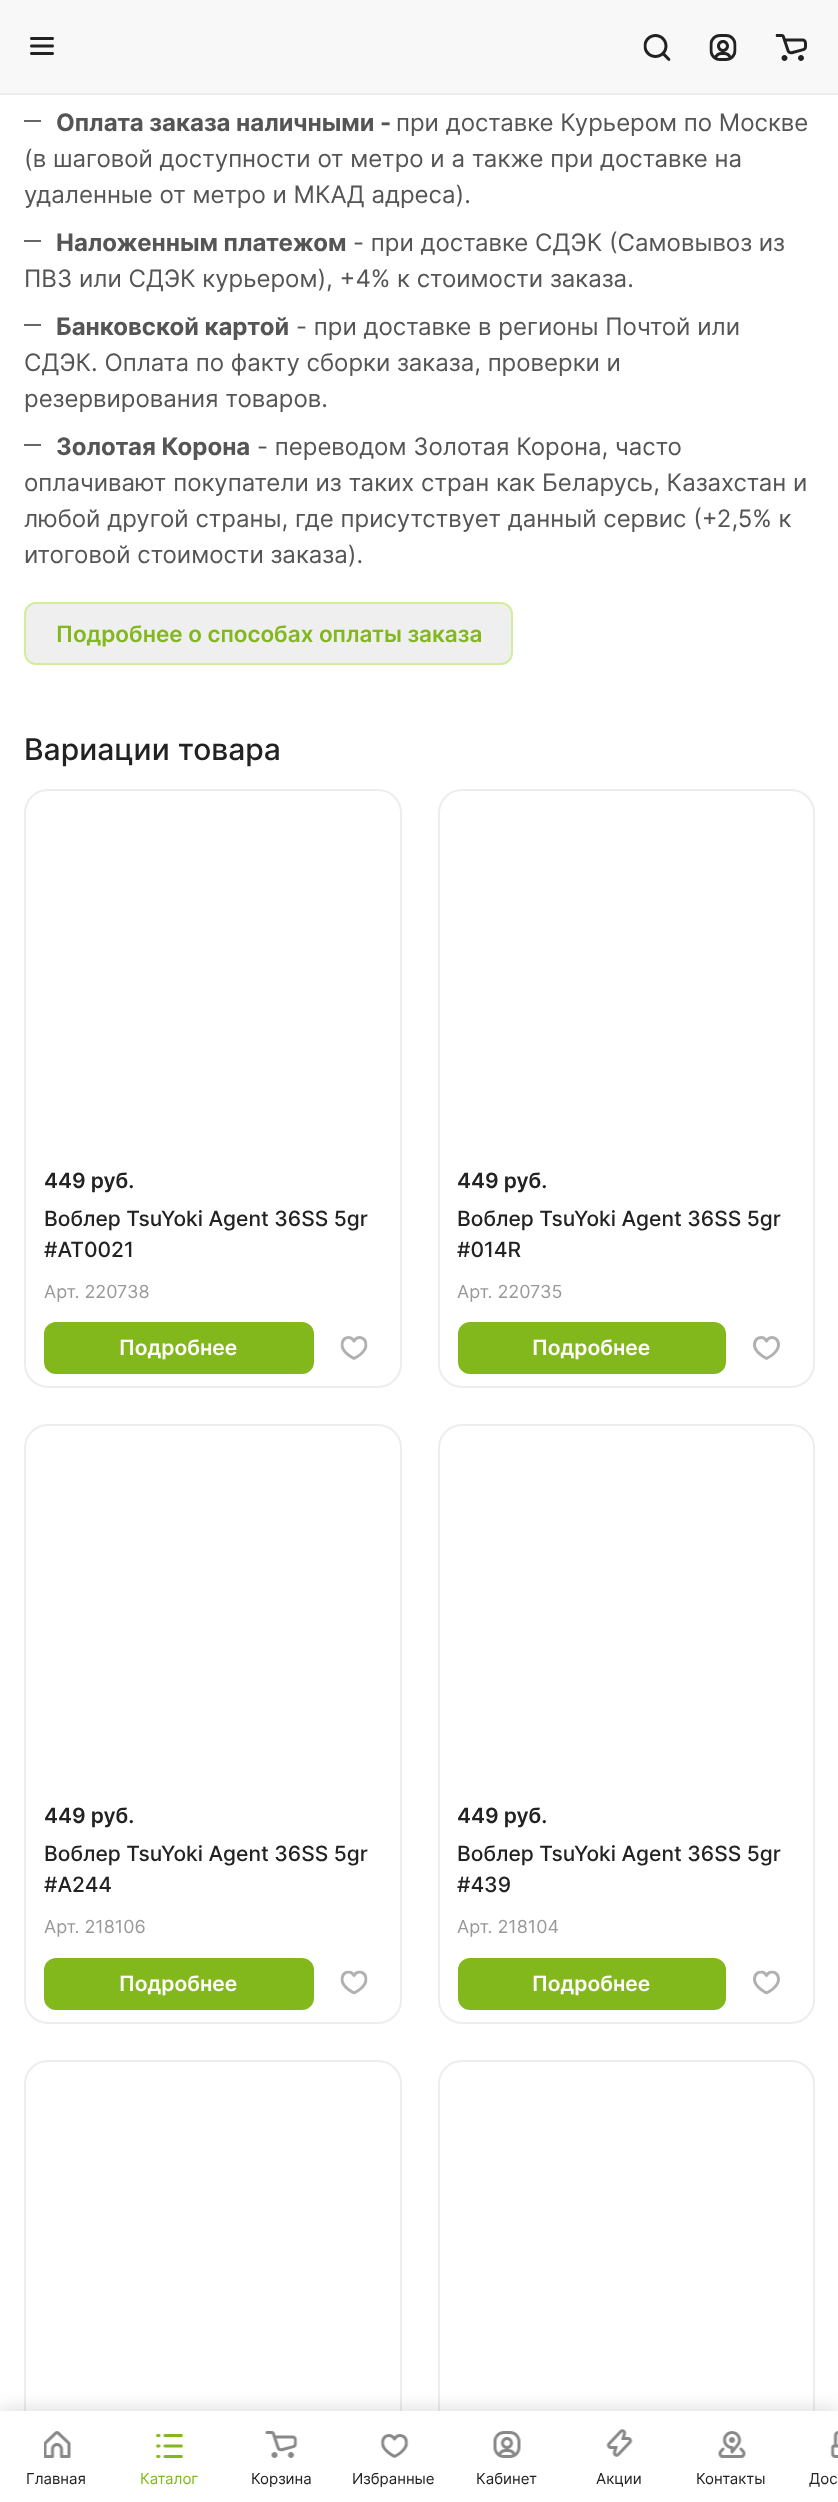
(async () => {
  const canvas = document.querySelector("canvas");
  canvas.width = 838;
  canvas.height = 2502;
  const ctx = canvas.getContext("2d");
  ctx.miterLimit = 4;
  ctx.fontKerning = "normal";
  async function loadImage(src) {
    const img = new Image();
    img.src = src;
    await img.decode();
    return img;
  }
  let path;

  ctx.fillStyle = "#ffffff";
  ctx.fillRect(0, 0, 838, 2502);
  ctx.fillStyle = "#ededed";
  path = new Path2D("M0 93V95H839V2H838V93Z");
  ctx.fill(path);
  ctx.fillStyle = "#f8f8f8";
  ctx.fillRect(0, 0, 838, 93);
  ctx.drawImage(await loadImage("img/1.png"), 30, 37, 24, 18);
  ctx.drawImage(await loadImage("img/2.png"), 643, 34, 28, 27);
  ctx.drawImage(await loadImage("img/3.png"), 709, 34, 28, 27);
  ctx.drawImage(await loadImage("img/4.png"), 775, 34, 32, 27);
  for (const [x, y, w, h, color] of [
    [24, 120, 17, 2, "#666666"],
    [24, 240, 17, 2, "#666666"],
    [24, 324, 17, 2, "#666666"],
    [24, 444, 17, 2, "#666666"],
  ]) {
    ctx.fillStyle = color;
    ctx.fillRect(x, y, w, h);
  }
  ctx.fillStyle = "#efefef";
  ctx.beginPath();
  ctx.roundRect(25, 603, 487, 61, 11);
  ctx.fill();
  ctx.strokeStyle = "#d1ef9a";
  ctx.lineWidth = 2;
  ctx.stroke();
  ctx.beginPath();
  ctx.roundRect(25, 790, 376, 597, 23);
  ctx.strokeStyle = "#ededed";
  ctx.stroke();
  ctx.fillStyle = "#83b81d";
  ctx.beginPath();
  ctx.roundRect(45, 1323, 268, 50, 11);
  ctx.fill();
  ctx.strokeStyle = "#83b81d";
  ctx.stroke();
  ctx.drawImage(await loadImage("img/5.png"), 340, 1336, 28, 24);
  ctx.beginPath();
  ctx.roundRect(439, 790, 375, 597, 23);
  ctx.strokeStyle = "#ededed";
  ctx.stroke();
  ctx.beginPath();
  ctx.roundRect(459, 1323, 266, 50, 11);
  ctx.fill();
  ctx.strokeStyle = "#83b81d";
  ctx.stroke();
  ctx.drawImage(await loadImage("img/6.png"), 753, 1336, 27, 24);
  ctx.beginPath();
  ctx.roundRect(25, 1425, 376, 598, 23);
  ctx.strokeStyle = "#ededed";
  ctx.stroke();
  ctx.beginPath();
  ctx.roundRect(45, 1959, 268, 50, 11);
  ctx.fill();
  ctx.strokeStyle = "#83b81d";
  ctx.stroke();
  ctx.drawImage(await loadImage("img/7.png"), 340, 1970, 28, 25);
  ctx.beginPath();
  ctx.roundRect(439, 1425, 375, 598, 23);
  ctx.strokeStyle = "#ededed";
  ctx.stroke();
  ctx.beginPath();
  ctx.roundRect(459, 1959, 266, 50, 11);
  ctx.fill();
  ctx.strokeStyle = "#83b81d";
  ctx.stroke();
  ctx.drawImage(await loadImage("img/8.png"), 753, 1970, 27, 25);
  ctx.beginPath();
  ctx.roundRect(25, 2061, 376, 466, 23);
  ctx.strokeStyle = "#ededed";
  ctx.stroke();
  ctx.beginPath();
  ctx.roundRect(439, 2061, 375, 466, 23);
  ctx.stroke();
  ctx.fillStyle = "rgba(0, 0, 0, 0.1)";
  ctx.filter = "blur(7.5px)";
  ctx.beginPath();
  ctx.rect(0, 2406, 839, 92);
  ctx.fill();
  ctx.filter = "none";
  ctx.fillStyle = "#ffffff";
  ctx.fillRect(0, 2411, 838, 91);
  ctx.drawImage(await loadImage("img/9.png"), 44, 2431, 27, 27);
  ctx.drawImage(await loadImage("img/10.png"), 155, 2434, 29, 24);
  ctx.drawImage(await loadImage("img/11.png"), 265, 2431, 33, 27);
  ctx.drawImage(await loadImage("img/12.png"), 380, 2434, 29, 24);
  ctx.drawImage(await loadImage("img/13.png"), 493, 2431, 28, 27);
  ctx.drawImage(await loadImage("img/14.png"), 606, 2429, 27, 28);
  ctx.drawImage(await loadImage("img/15.png"), 718, 2431, 28, 27);
  ctx.drawImage(await loadImage("img/16.png"), 830, 2431, 8, 27);
  ctx.font = "bold 24px Inter";
  ctx.fillStyle = "#555555";
  ctx.fillText("Оплата заказа наличными -", 56, 131);
  ctx.font = "24px Inter";
  for (const [text, x, y] of [
    ["при доставке Курьером по Москве", 396, 131],
    ["(в шаговой доступности от метро и а также при доставке на", 24, 167],
    ["удаленные от метро и МКАД адреса).", 24, 203],
  ]) {
    ctx.fillText(text, x, y);
  }
  ctx.font = "bold 24px Inter";
  ctx.fillText("Наложенным платежом", 56, 251);
  ctx.font = "24px Inter";
  ctx.fillText("- при доставке СДЭК (Самовывоз из", 353, 251);
  ctx.fillText("ПВЗ или СДЭК курьером), +4% к стоимости заказа.", 24, 287);
  ctx.font = "bold 24px Inter";
  ctx.fillText("Банковской картой", 56, 335);
  ctx.font = "24px Inter";
  for (const [text, x, y] of [
    ["- при доставке в регионы Почтой или", 296, 335],
    ["СДЭК. Оплата по факту сборки заказа, проверки и", 24, 371],
    ["резервирования товаров.", 24, 407],
  ]) {
    ctx.fillText(text, x, y);
  }
  ctx.font = "bold 24px Inter";
  ctx.fillText("Золотая Корона", 56, 455);
  ctx.font = "24px Inter";
  for (const [text, x, y] of [
    ["- переводом Золотая Корона, часто", 257, 455],
    ["оплачивают покупатели из таких стран как Беларусь, Казахстан и", 24, 491],
    ["любой другой страны, где присутствует данный сервис (+2,5% к", 24, 527],
    ["итоговой стоимости заказа).", 24, 563],
  ]) {
    ctx.fillText(text, x, y);
  }
  ctx.font = "600 22.5px Inter";
  ctx.fillStyle = "#83b81d";
  ctx.fillText("Подробнее о способах оплаты заказа", 56, 642);
  ctx.font = "500 30px Inter";
  ctx.fillStyle = "#222222";
  ctx.fillText("Вариации товара", 24, 760);
  ctx.font = "600 21px Inter";
  ctx.fillText("449 руб.", 44, 1188);
  ctx.font = "500 21px Inter";
  ctx.fillText("Воблер TsuYoki Agent 36SS 5gr", 44, 1226);
  ctx.fillText("#AT0021", 44, 1257);
  ctx.font = "18px Inter";
  ctx.fillStyle = "#999999";
  ctx.fillText("Арт. 220738", 44, 1298);
  ctx.font = "600 21px Inter";
  ctx.fillStyle = "#ffffff";
  ctx.fillText("Подробнее", 119, 1355);
  ctx.fillStyle = "#222222";
  ctx.fillText("449 руб.", 457, 1188);
  ctx.font = "500 21px Inter";
  ctx.fillText("Воблер TsuYoki Agent 36SS 5gr", 457, 1226);
  ctx.fillText("#014R", 457, 1257);
  ctx.font = "18px Inter";
  ctx.fillStyle = "#999999";
  ctx.fillText("Арт. 220735", 457, 1298);
  ctx.font = "600 21px Inter";
  ctx.fillStyle = "#ffffff";
  ctx.fillText("Подробнее", 532, 1355);
  ctx.fillStyle = "#222222";
  ctx.fillText("449 руб.", 44, 1823);
  ctx.font = "500 21px Inter";
  ctx.fillText("Воблер TsuYoki Agent 36SS 5gr", 44, 1861);
  ctx.fillText("#A244", 44, 1892);
  ctx.font = "18px Inter";
  ctx.fillStyle = "#999999";
  ctx.fillText("Арт. 218106", 44, 1933);
  ctx.font = "600 21px Inter";
  ctx.fillStyle = "#ffffff";
  ctx.fillText("Подробнее", 119, 1991);
  ctx.fillStyle = "#222222";
  ctx.fillText("449 руб.", 457, 1823);
  ctx.font = "500 21px Inter";
  ctx.fillText("Воблер TsuYoki Agent 36SS 5gr", 457, 1861);
  ctx.fillText("#439", 457, 1892);
  ctx.font = "18px Inter";
  ctx.fillStyle = "#999999";
  ctx.fillText("Арт. 218104", 457, 1933);
  ctx.font = "600 21px Inter";
  ctx.fillStyle = "#ffffff";
  ctx.fillText("Подробнее", 532, 1991);
  ctx.font = "15px Inter";
  ctx.fillStyle = "#222222";
  ctx.fillText("Главная", 26, 2484);
  ctx.fillStyle = "#83b81d";
  ctx.fillText("Каталог", 140, 2484);
  ctx.fillStyle = "#222222";
  for (const [text, x, y] of [
    ["Корзина", 251, 2484],
    ["Избранные", 352, 2484],
    ["Кабинет", 476, 2484],
    ["Акции", 596, 2484],
    ["Контакты", 696, 2484],
    ["Дос", 809, 2484],
  ]) {
    ctx.fillText(text, x, y);
  }
})();
